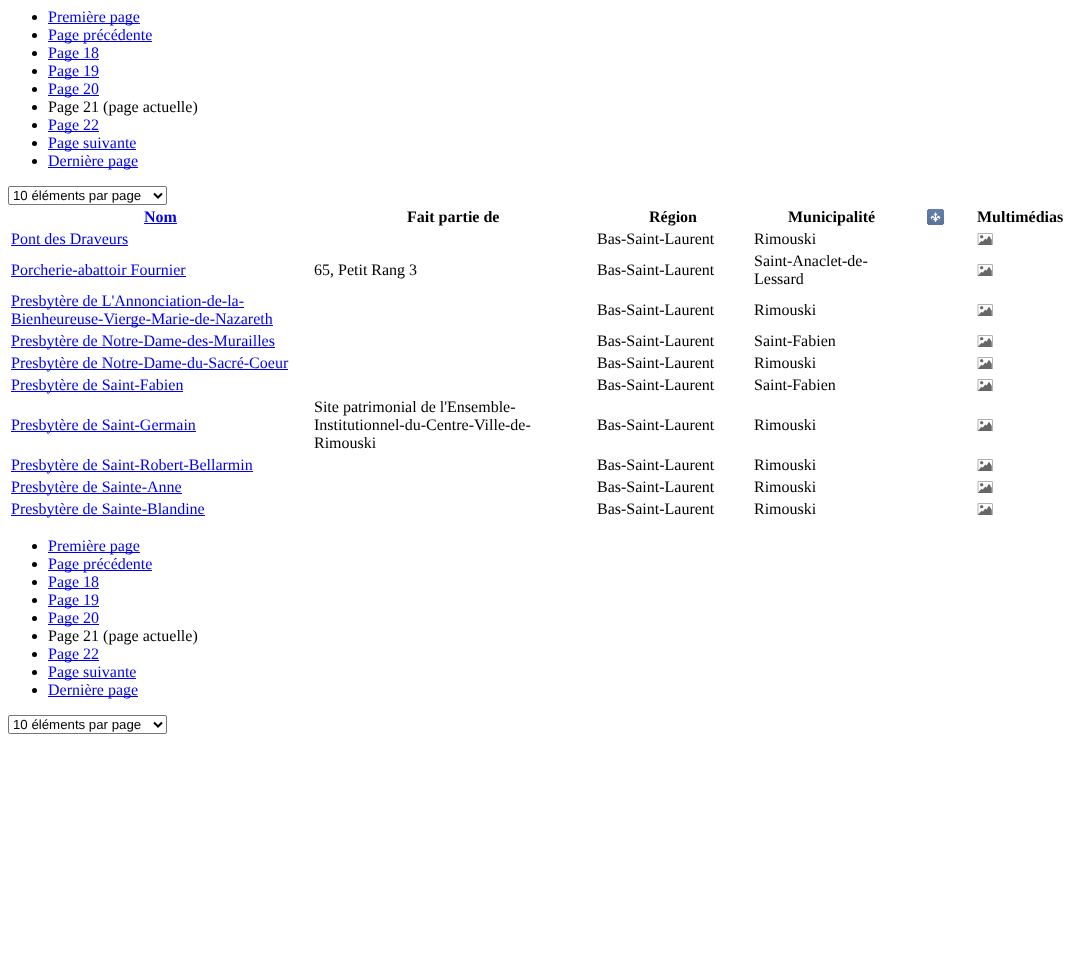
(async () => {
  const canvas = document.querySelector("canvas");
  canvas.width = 1074;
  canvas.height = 967;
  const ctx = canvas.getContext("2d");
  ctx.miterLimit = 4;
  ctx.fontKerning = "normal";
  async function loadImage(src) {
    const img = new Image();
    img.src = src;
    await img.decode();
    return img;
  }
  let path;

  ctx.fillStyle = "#ffffff";
  ctx.fillRect(0, 0, 1074, 967);
  ctx.fillStyle = "#000000";
  ctx.beginPath();
  ctx.arc(34.5, 17.5, 2.5, 0, Math.PI * 2);
  ctx.fill();
  ctx.fillStyle = "#0000ee";
  ctx.fillRect(48, 23, 92, 1);
  ctx.fillStyle = "#000000";
  ctx.beginPath();
  ctx.arc(34.5, 35.5, 2.5, 0, Math.PI * 2);
  ctx.fill();
  ctx.fillStyle = "#0000ee";
  ctx.fillRect(48, 41, 104, 1);
  ctx.fillStyle = "#000000";
  ctx.beginPath();
  ctx.arc(34.5, 53.5, 2.5, 0, Math.PI * 2);
  ctx.fill();
  ctx.fillStyle = "#0000ee";
  ctx.fillRect(48, 59, 51, 1);
  ctx.fillStyle = "#000000";
  ctx.beginPath();
  ctx.arc(34.5, 71.5, 2.5, 0, Math.PI * 2);
  ctx.fill();
  ctx.fillStyle = "#0000ee";
  ctx.fillRect(48, 77, 51, 1);
  ctx.fillStyle = "#000000";
  ctx.beginPath();
  ctx.arc(34.5, 89.5, 2.5, 0, Math.PI * 2);
  ctx.fill();
  ctx.fillStyle = "#0000ee";
  ctx.fillRect(48, 95, 51, 1);
  ctx.fillStyle = "#000000";
  ctx.beginPath();
  ctx.arc(34.5, 107.5, 2.5, 0, Math.PI * 2);
  ctx.fill();
  ctx.beginPath();
  ctx.arc(34.5, 125.5, 2.5, 0, Math.PI * 2);
  ctx.fill();
  ctx.fillStyle = "#0000ee";
  ctx.fillRect(48, 131, 51, 1);
  ctx.fillStyle = "#000000";
  ctx.beginPath();
  ctx.arc(34.5, 143.5, 2.5, 0, Math.PI * 2);
  ctx.fill();
  ctx.fillStyle = "#0000ee";
  ctx.fillRect(48, 149, 88, 1);
  ctx.fillStyle = "#000000";
  ctx.beginPath();
  ctx.arc(34.5, 161.5, 2.5, 0, Math.PI * 2);
  ctx.fill();
  ctx.fillStyle = "#0000ee";
  ctx.fillRect(48, 167, 90, 1);
  ctx.beginPath();
  ctx.roundRect(8.5, 186.5, 158, 18, 1.5);
  ctx.strokeStyle = "#767676";
  ctx.stroke();
  path = new Path2D("M154 193.5L158 197.5L162 193.5");
  ctx.strokeStyle = "#000000";
  ctx.lineWidth = 2;
  ctx.stroke(path);
  ctx.fillRect(144, 223, 33, 1);
  ctx.drawImage(await loadImage("img/1.png"), 927, 209, 17, 16);
  ctx.fillRect(11, 245, 117, 1);
  ctx.drawImage(await loadImage("img/2.png"), 977, 233, 16, 12);
  ctx.fillRect(11, 276, 175, 1);
  ctx.drawImage(await loadImage("img/2.png"), 977, 264, 16, 12);
  ctx.fillRect(11, 307, 233, 1);
  ctx.fillRect(11, 325, 262, 1);
  ctx.drawImage(await loadImage("img/2.png"), 977, 304, 16, 12);
  ctx.fillRect(11, 347, 264, 1);
  ctx.drawImage(await loadImage("img/2.png"), 977, 335, 16, 12);
  ctx.fillRect(11, 369, 277, 1);
  ctx.drawImage(await loadImage("img/2.png"), 977, 357, 16, 12);
  ctx.fillRect(11, 391, 172, 1);
  ctx.drawImage(await loadImage("img/2.png"), 977, 379, 16, 12);
  ctx.fillRect(11, 431, 185, 1);
  ctx.drawImage(await loadImage("img/2.png"), 977, 419, 16, 12);
  ctx.fillRect(11, 471, 242, 1);
  ctx.drawImage(await loadImage("img/2.png"), 977, 459, 16, 12);
  ctx.fillRect(11, 493, 171, 1);
  ctx.drawImage(await loadImage("img/2.png"), 977, 481, 16, 12);
  ctx.fillRect(11, 515, 194, 1);
  ctx.drawImage(await loadImage("img/2.png"), 977, 503, 16, 12);
  ctx.fillStyle = "#000000";
  ctx.beginPath();
  ctx.arc(34.5, 546.5, 2.5, 0, Math.PI * 2);
  ctx.fill();
  ctx.fillStyle = "#0000ee";
  ctx.fillRect(48, 552, 92, 1);
  ctx.fillStyle = "#000000";
  ctx.beginPath();
  ctx.arc(34.5, 564.5, 2.5, 0, Math.PI * 2);
  ctx.fill();
  ctx.fillStyle = "#0000ee";
  ctx.fillRect(48, 570, 104, 1);
  ctx.fillStyle = "#000000";
  ctx.beginPath();
  ctx.arc(34.5, 582.5, 2.5, 0, Math.PI * 2);
  ctx.fill();
  ctx.fillStyle = "#0000ee";
  ctx.fillRect(48, 588, 51, 1);
  ctx.fillStyle = "#000000";
  ctx.beginPath();
  ctx.arc(34.5, 600.5, 2.5, 0, Math.PI * 2);
  ctx.fill();
  ctx.fillStyle = "#0000ee";
  ctx.fillRect(48, 606, 51, 1);
  ctx.fillStyle = "#000000";
  ctx.beginPath();
  ctx.arc(34.5, 618.5, 2.5, 0, Math.PI * 2);
  ctx.fill();
  ctx.fillStyle = "#0000ee";
  ctx.fillRect(48, 624, 51, 1);
  ctx.fillStyle = "#000000";
  ctx.beginPath();
  ctx.arc(34.5, 636.5, 2.5, 0, Math.PI * 2);
  ctx.fill();
  ctx.beginPath();
  ctx.arc(34.5, 654.5, 2.5, 0, Math.PI * 2);
  ctx.fill();
  ctx.fillStyle = "#0000ee";
  ctx.fillRect(48, 660, 51, 1);
  ctx.fillStyle = "#000000";
  ctx.beginPath();
  ctx.arc(34.5, 672.5, 2.5, 0, Math.PI * 2);
  ctx.fill();
  ctx.fillStyle = "#0000ee";
  ctx.fillRect(48, 678, 88, 1);
  ctx.fillStyle = "#000000";
  ctx.beginPath();
  ctx.arc(34.5, 690.5, 2.5, 0, Math.PI * 2);
  ctx.fill();
  ctx.fillStyle = "#0000ee";
  ctx.fillRect(48, 696, 90, 1);
  ctx.beginPath();
  ctx.roundRect(8.5, 715.5, 158, 18, 1.5);
  ctx.strokeStyle = "#767676";
  ctx.lineWidth = 1;
  ctx.stroke();
  path = new Path2D("M154 722.5L158 726.5L162 722.5");
  ctx.strokeStyle = "#000000";
  ctx.lineWidth = 2;
  ctx.stroke(path);
  ctx.font = "16px Liberation Serif";
  for (const [text, x, y] of [
    ["Première page", 48, 22],
    ["Page précédente", 48, 40],
    ["Page 18", 48, 58],
    ["Page 19", 48, 76],
    ["Page 20", 48, 94],
  ]) {
    ctx.fillText(text, x, y);
  }
  ctx.fillStyle = "#000000";
  ctx.fillText("Page 21 (page actuelle)", 48, 112);
  ctx.fillStyle = "#0000ee";
  for (const [text, x, y] of [
    ["Page 22", 48, 130],
    ["Page suivante", 48, 148],
    ["Dernière page", 48, 166],
  ]) {
    ctx.fillText(text, x, y);
  }
  ctx.font = "13.25px Liberation Sans";
  ctx.fillStyle = "#000000";
  ctx.fillText("10 éléments par page", 13, 200);
  ctx.font = "bold 16px Liberation Serif";
  ctx.fillStyle = "#0000ee";
  ctx.fillText("Nom", 144, 222);
  ctx.fillStyle = "#000000";
  for (const [text, x, y] of [
    ["Fait partie de", 407, 222],
    ["Région", 649, 222],
    ["Municipalité", 788, 222],
    ["Multimédias", 977, 222],
  ]) {
    ctx.fillText(text, x, y);
  }
  ctx.font = "16px Liberation Serif";
  ctx.fillStyle = "#0000ee";
  ctx.fillText("Pont des Draveurs", 11, 244);
  ctx.fillStyle = "#000000";
  ctx.fillText("Bas-Saint-Laurent", 597, 244);
  ctx.fillText("Rimouski", 754, 244);
  ctx.fillStyle = "#0000ee";
  ctx.fillText("Porcherie-abattoir Fournier", 11, 275);
  ctx.fillStyle = "#000000";
  for (const [text, x, y] of [
    ["65, Petit Rang 3", 314, 275],
    ["Bas-Saint-Laurent", 597, 275],
    ["Saint-Anaclet-de-", 754, 266],
    ["Lessard", 754, 284],
  ]) {
    ctx.fillText(text, x, y);
  }
  ctx.fillStyle = "#0000ee";
  ctx.fillText("Presbytère de L'Annonciation-de-la-", 11, 306);
  ctx.fillText("Bienheureuse-Vierge-Marie-de-Nazareth", 11, 324);
  ctx.fillStyle = "#000000";
  ctx.fillText("Bas-Saint-Laurent", 597, 315);
  ctx.fillText("Rimouski", 754, 315);
  ctx.fillStyle = "#0000ee";
  ctx.fillText("Presbytère de Notre-Dame-des-Murailles", 11, 346);
  ctx.fillStyle = "#000000";
  ctx.fillText("Bas-Saint-Laurent", 597, 346);
  ctx.fillText("Saint-Fabien", 754, 346);
  ctx.fillStyle = "#0000ee";
  ctx.fillText("Presbytère de Notre-Dame-du-Sacré-Coeur", 11, 368);
  ctx.fillStyle = "#000000";
  ctx.fillText("Bas-Saint-Laurent", 597, 368);
  ctx.fillText("Rimouski", 754, 368);
  ctx.fillStyle = "#0000ee";
  ctx.fillText("Presbytère de Saint-Fabien", 11, 390);
  ctx.fillStyle = "#000000";
  ctx.fillText("Bas-Saint-Laurent", 597, 390);
  ctx.fillText("Saint-Fabien", 754, 390);
  ctx.fillStyle = "#0000ee";
  ctx.fillText("Presbytère de Saint-Germain", 11, 430);
  ctx.fillStyle = "#000000";
  for (const [text, x, y] of [
    ["Site patrimonial de l'Ensemble-", 314, 412],
    ["Institutionnel-du-Centre-Ville-de-", 314, 430],
    ["Rimouski", 314, 448],
    ["Bas-Saint-Laurent", 597, 430],
    ["Rimouski", 754, 430],
  ]) {
    ctx.fillText(text, x, y);
  }
  ctx.fillStyle = "#0000ee";
  ctx.fillText("Presbytère de Saint-Robert-Bellarmin", 11, 470);
  ctx.fillStyle = "#000000";
  ctx.fillText("Bas-Saint-Laurent", 597, 470);
  ctx.fillText("Rimouski", 754, 470);
  ctx.fillStyle = "#0000ee";
  ctx.fillText("Presbytère de Sainte-Anne", 11, 492);
  ctx.fillStyle = "#000000";
  ctx.fillText("Bas-Saint-Laurent", 597, 492);
  ctx.fillText("Rimouski", 754, 492);
  ctx.fillStyle = "#0000ee";
  ctx.fillText("Presbytère de Sainte-Blandine", 11, 514);
  ctx.fillStyle = "#000000";
  ctx.fillText("Bas-Saint-Laurent", 597, 514);
  ctx.fillText("Rimouski", 754, 514);
  ctx.fillStyle = "#0000ee";
  for (const [text, x, y] of [
    ["Première page", 48, 551],
    ["Page précédente", 48, 569],
    ["Page 18", 48, 587],
    ["Page 19", 48, 605],
    ["Page 20", 48, 623],
  ]) {
    ctx.fillText(text, x, y);
  }
  ctx.fillStyle = "#000000";
  ctx.fillText("Page 21 (page actuelle)", 48, 641);
  ctx.fillStyle = "#0000ee";
  for (const [text, x, y] of [
    ["Page 22", 48, 659],
    ["Page suivante", 48, 677],
    ["Dernière page", 48, 695],
  ]) {
    ctx.fillText(text, x, y);
  }
  ctx.font = "13.25px Liberation Sans";
  ctx.fillStyle = "#000000";
  ctx.fillText("10 éléments par page", 13, 729);
})();
